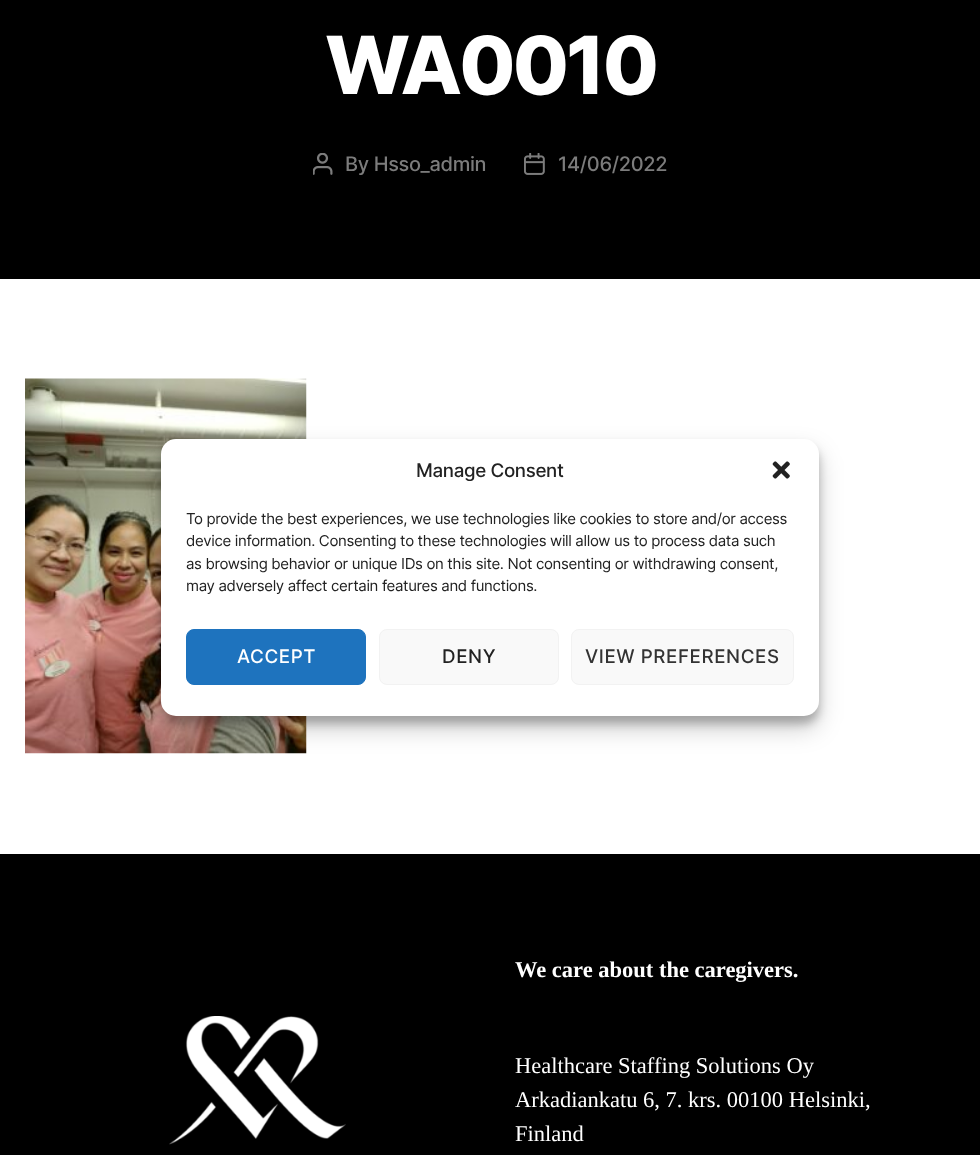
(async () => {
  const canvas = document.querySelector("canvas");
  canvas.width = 980;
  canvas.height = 1155;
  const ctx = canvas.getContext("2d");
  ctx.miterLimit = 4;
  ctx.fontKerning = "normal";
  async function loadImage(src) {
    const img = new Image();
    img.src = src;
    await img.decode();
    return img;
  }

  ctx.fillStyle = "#ffffff";
  ctx.fillRect(0, 0, 980, 1155);
  ctx.fillStyle = "#000000";
  ctx.fillRect(0, 0, 980, 279);
  ctx.drawImage(await loadImage("img/1.png"), 313, 153, 20, 22);
  ctx.drawImage(await loadImage("img/2.png"), 524, 153, 21, 22);
  ctx.drawImage(await loadImage("img/3.png"), 25, 378, 282, 376);
  ctx.fillStyle = "rgba(0, 0, 0, 0.23)";
  ctx.filter = "blur(4px)";
  ctx.beginPath();
  ctx.roundRect(161, 446, 658, 278, 15);
  ctx.fill();
  ctx.filter = "none";
  ctx.fillStyle = "rgba(0, 0, 0, 0.19)";
  ctx.filter = "blur(12.5px)";
  ctx.beginPath();
  ctx.roundRect(161, 451, 658, 278, 15);
  ctx.fill();
  ctx.filter = "none";
  ctx.fillStyle = "#ffffff";
  ctx.beginPath();
  ctx.roundRect(161, 439, 658, 277, 15);
  ctx.fill();
  ctx.drawImage(await loadImage("img/4.png"), 772, 461, 18, 18);
  ctx.fillStyle = "#1e73be";
  ctx.beginPath();
  ctx.roundRect(186.5, 629.5, 179, 55, 7.5);
  ctx.fill();
  ctx.strokeStyle = "#1e73be";
  ctx.stroke();
  ctx.fillStyle = "#f9f9f9";
  ctx.beginPath();
  ctx.roundRect(379.5, 629.5, 179, 55, 7.5);
  ctx.fill();
  ctx.strokeStyle = "#f2f2f2";
  ctx.stroke();
  ctx.beginPath();
  ctx.roundRect(571.5, 629.5, 222, 55, 7.5);
  ctx.fill();
  ctx.stroke();
  ctx.fillStyle = "#000000";
  ctx.fillRect(0, 854, 980, 301);
  ctx.drawImage(await loadImage("img/5.png"), 169, 1016, 177, 129);
  ctx.letterSpacing = "-3.25px";
  ctx.font = "800 80px Inter";
  ctx.fillStyle = "#ffffff";
  ctx.fillText("WA0010", 325, 94);
  ctx.letterSpacing = "-0.35px";
  ctx.font = "500 20px Inter";
  ctx.fillStyle = "#7c7c7c";
  ctx.fillText("By Hsso_admin", 345, 171);
  ctx.fillText("14/06/2022", 558, 171);
  ctx.font = "500 18.75px Inter";
  ctx.fillStyle = "#222222";
  ctx.fillText("Manage Consent", 416, 477);
  ctx.font = "15px Inter";
  for (const [text, x, y] of [
    ["To provide the best experiences, we use technologies like cookies to store and/or access", 186, 524],
    ["device information. Consenting to these technologies will allow us to process data such", 186, 546],
    ["as browsing behavior or unique IDs on this site. Not consenting or withdrawing consent,", 186, 569],
    ["may adversely affect certain features and functions.", 186, 591],
  ]) {
    ctx.fillText(text, x, y);
  }
  ctx.letterSpacing = "0.6px";
  ctx.font = "500 18.75px Inter";
  ctx.fillStyle = "#ffffff";
  ctx.fillText("ACCEPT", 237, 663);
  ctx.fillStyle = "#222222";
  ctx.fillText("DENY", 442, 663);
  ctx.fillStyle = "#333333";
  ctx.fillText("VIEW PREFERENCES", 585, 663);
  ctx.letterSpacing = "0px";
  ctx.font = "bold 22.5px Liberation Serif";
  ctx.fillStyle = "#ffffff";
  ctx.fillText("We care about the caregivers.", 515, 977);
  ctx.font = "22.5px Liberation Serif";
  for (const [text, x, y] of [
    ["Healthcare Staffing Solutions Oy", 515, 1073],
    ["Arkadiankatu 6, 7. krs. 00100 Helsinki,", 515, 1107],
    ["Finland", 515, 1141],
  ]) {
    ctx.fillText(text, x, y);
  }
})();
